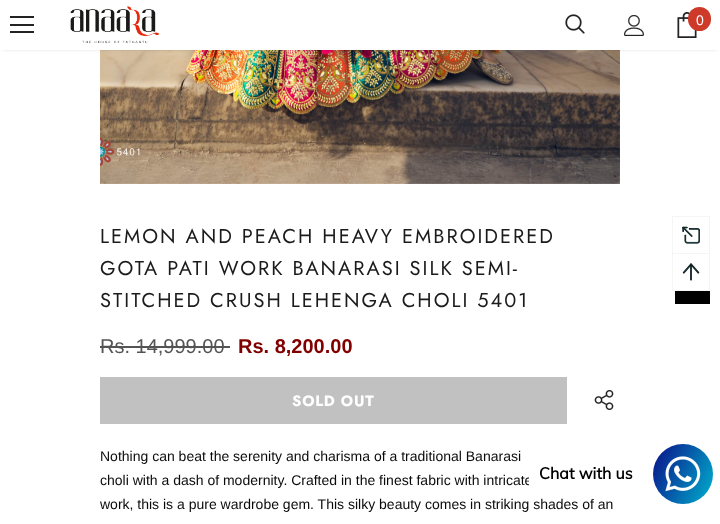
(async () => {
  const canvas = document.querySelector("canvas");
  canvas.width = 720;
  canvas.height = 524;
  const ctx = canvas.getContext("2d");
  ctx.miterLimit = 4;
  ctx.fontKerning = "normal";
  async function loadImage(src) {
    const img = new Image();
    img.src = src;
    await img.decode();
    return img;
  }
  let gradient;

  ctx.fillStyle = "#ffffff";
  ctx.fillRect(0, 0, 720, 524);
  ctx.drawImage(await loadImage("img/5.png"), 100, 50, 520, 134);
  ctx.fillStyle = "rgba(0, 0, 0, 0.12)";
  ctx.filter = "blur(1.5px)";
  ctx.beginPath();
  ctx.rect(3, 6, 714, 44);
  ctx.fill();
  ctx.filter = "none";
  for (const [x, y, w, h, color] of [
    [1, 4, 718, 46, "#ffffff"],
    [10, 16, 24, 2, "#232323"],
    [10, 24, 24, 2, "#232323"],
    [10, 31, 24, 2, "#232323"],
  ]) {
    ctx.fillStyle = color;
    ctx.fillRect(x, y, w, h);
  }
  ctx.drawImage(await loadImage("img/1.png"), 70, 6, 90, 38);
  ctx.drawImage(await loadImage("img/2.png"), 565, 14, 20, 20);
  ctx.drawImage(await loadImage("img/3.png"), 624, 15, 20, 21);
  ctx.drawImage(await loadImage("img/4.png"), 677, 12, 20, 26);
  ctx.fillStyle = "#cd3a2a";
  ctx.beginPath();
  ctx.roundRect(688, 7, 23, 24, 11.5);
  ctx.fill();
  ctx.fillStyle = "#545454";
  ctx.fillRect(100, 346, 130, 2);
  ctx.fillStyle = "#c1c1c1";
  ctx.fillRect(100, 377, 467, 47);
  ctx.drawImage(await loadImage("img/6.png"), 594, 390, 20, 20);
  for (const [x, y, w, h, color] of [
    [675, 291, 35, 13, "#000000"],
    [672, 216, 38, 1, "#f5f5f6"],
    [709, 216, 1, 37, "#f5f5f6"],
    [672, 216, 1, 37, "#f5f5f6"],
  ]) {
    ctx.fillStyle = color;
    ctx.fillRect(x, y, w, h);
  }
  ctx.drawImage(await loadImage("img/7.png"), 682, 226, 18, 18);
  ctx.strokeStyle = "#f5f5f6";
  ctx.strokeRect(672.5, 253.5, 37, 37);
  ctx.drawImage(await loadImage("img/8.png"), 682, 263, 18, 18);
  gradient = ctx.createLinearGradient(647, 457, 719, 491);
  gradient.addColorStop(0, "#0a0e88");
  gradient.addColorStop(1, "#00b1ce");
  ctx.fillStyle = gradient;
  ctx.beginPath();
  ctx.arc(683, 474, 30, 0, Math.PI * 2);
  ctx.fill();
  ctx.drawImage(await loadImage("img/9.png"), 665, 456, 36, 36);
  ctx.font = "14px Liberation Sans";
  ctx.fillStyle = "#ffffff";
  ctx.fillText("0", 696, 25);
  ctx.letterSpacing = "2px";
  ctx.font = "20px Jost";
  ctx.fillStyle = "#1c1b1b";
  for (const [text, x, y] of [
    ["LEMON AND PEACH HEAVY EMBROIDERED", 100, 243],
    ["GOTA PATI WORK BANARASI SILK SEMI-", 100, 275],
    ["STITCHED CRUSH LEHENGA CHOLI 5401", 100, 307],
  ]) {
    ctx.fillText(text, x, y);
  }
  ctx.letterSpacing = "0px";
  ctx.font = "20px Liberation Sans";
  ctx.fillStyle = "#545454";
  ctx.fillText("Rs. 14,999.00", 100, 353);
  ctx.font = "bold 20px Liberation Sans";
  ctx.fillStyle = "#800000";
  ctx.fillText("Rs. 8,200.00", 238, 353);
  ctx.letterSpacing = "0.75px";
  ctx.font = "bold 15px Jost";
  ctx.fillStyle = "#ffffff";
  ctx.fillText("SOLD OUT", 292, 406);
  ctx.letterSpacing = "0px";
  ctx.font = "14px Liberation Sans";
  ctx.fillStyle = "#0a0a0a";
  for (const [text, x, y] of [
    ["Nothing can beat the serenity and charisma of a traditional Banarasi", 100, 461],
    ["choli with a dash of modernity. Crafted in the finest fabric with intricate", 100, 485],
    ["work, this is a pure wardrobe gem. This silky beauty comes in striking shades of an", 100, 509],
  ]) {
    ctx.fillText(text, x, y);
  }
  ctx.fillStyle = "#ffffff";
  ctx.beginPath();
  ctx.roundRect(529, 454, 114, 39, 8);
  ctx.fill();
  ctx.font = "bold 16px Muli";
  ctx.fillStyle = "#000000";
  ctx.fillText("Chat with us", 539, 479);
})();
